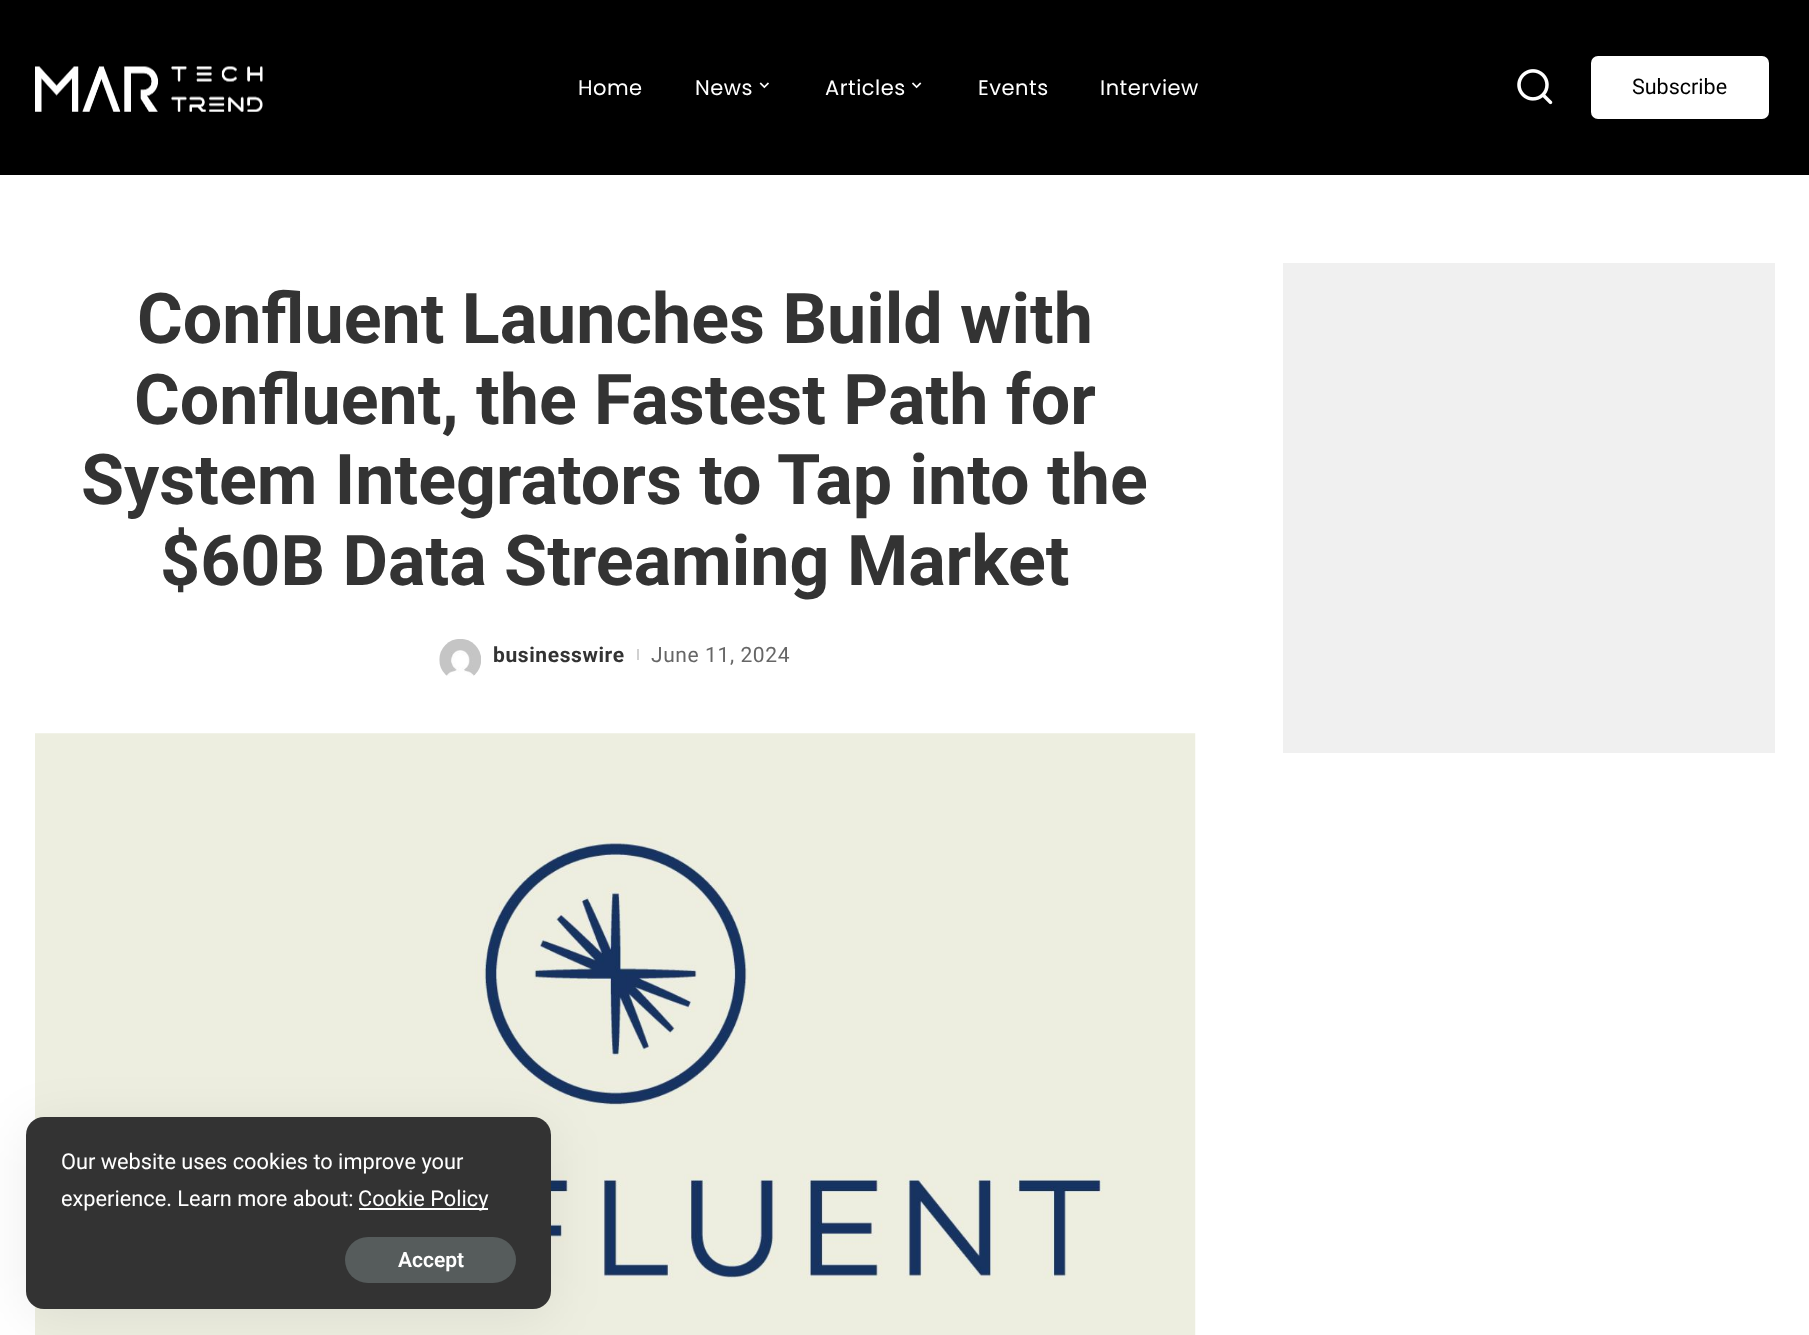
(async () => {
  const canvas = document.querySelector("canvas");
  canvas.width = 1809;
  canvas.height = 1335;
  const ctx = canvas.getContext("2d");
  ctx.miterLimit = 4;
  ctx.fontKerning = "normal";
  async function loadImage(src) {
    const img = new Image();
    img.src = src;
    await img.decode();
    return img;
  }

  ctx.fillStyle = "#ffffff";
  ctx.fillRect(0, 0, 1809, 1335);
  ctx.fillStyle = "#000000";
  ctx.fillRect(0, 0, 1809, 175);
  ctx.drawImage(await loadImage("img/1.png"), 35, 66, 228, 46);
  ctx.drawImage(await loadImage("img/2.png"), 759, 82, 10, 7);
  ctx.drawImage(await loadImage("img/3.png"), 912, 82, 10, 7);
  ctx.drawImage(await loadImage("img/4.png"), 1517, 69, 36, 36);
  ctx.fillStyle = "#ffffff";
  ctx.beginPath();
  ctx.roundRect(1591, 56, 178, 63, 7);
  ctx.fill();
  ctx.drawImage(await loadImage("img/5.png"), 439, 639, 42, 37);
  ctx.fillStyle = "#d1d1d1";
  ctx.fillRect(637, 649, 2, 11);
  ctx.drawImage(await loadImage("img/6.png"), 35, 733, 1161, 602);
  ctx.fillStyle = "#f0f0f0";
  ctx.fillRect(1283, 263, 492, 490);
  ctx.fillStyle = "rgba(0, 0, 0, 0.07)";
  ctx.filter = "blur(26px)";
  ctx.beginPath();
  ctx.roundRect(26, 1124, 525, 192, 18);
  ctx.fill();
  ctx.filter = "none";
  ctx.fillStyle = "#333333";
  ctx.beginPath();
  ctx.roundRect(26, 1117, 525, 192, 18);
  ctx.fill();
  ctx.fillStyle = "#ffffff";
  ctx.fillRect(359, 1208, 129, 2);
  ctx.fillStyle = "#565c5c";
  ctx.beginPath();
  ctx.roundRect(345, 1237, 171, 46, 23);
  ctx.fill();
  ctx.letterSpacing = "0.5px";
  ctx.font = "21px Poppins";
  ctx.fillStyle = "#ffffff";
  for (const [text, x, y] of [
    ["Home", 578, 95],
    ["News", 695, 95],
    ["Articles", 825, 95],
    ["Events", 978, 95],
    ["Interview", 1100, 95],
  ]) {
    ctx.fillText(text, x, y);
  }
  ctx.letterSpacing = "0px";
  ctx.font = "21.5px Roboto";
  ctx.fillStyle = "#000000";
  ctx.fillText("Subscribe", 1632, 94);
  ctx.font = "bold 70px Roboto";
  ctx.fillStyle = "#333333";
  for (const [text, x, y] of [
    ["Confluent Launches Build with", 137, 343],
    ["Confluent, the Fastest Path for", 134, 424],
    ["System Integrators to Tap into the", 81, 504],
    ["$60B Data Streaming Market", 160, 585],
  ]) {
    ctx.fillText(text, x, y);
  }
  ctx.letterSpacing = "0.6px";
  ctx.font = "bold 21px Roboto";
  ctx.fillText("businesswire", 493, 662);
  ctx.font = "21px Roboto";
  ctx.fillStyle = "#666666";
  ctx.fillText("June 11, 2024", 651, 662);
  ctx.letterSpacing = "0px";
  ctx.font = "21.75px Roboto";
  ctx.fillStyle = "#ffffff";
  for (const [text, x, y] of [
    ["Our website uses cookies to improve your", 61, 1169],
    ["experience. Learn more about:", 61, 1206],
    ["Cookie Policy", 358, 1206],
  ]) {
    ctx.fillText(text, x, y);
  }
  ctx.font = "600 21px Roboto";
  ctx.fillText("Accept", 398, 1267);
})();
